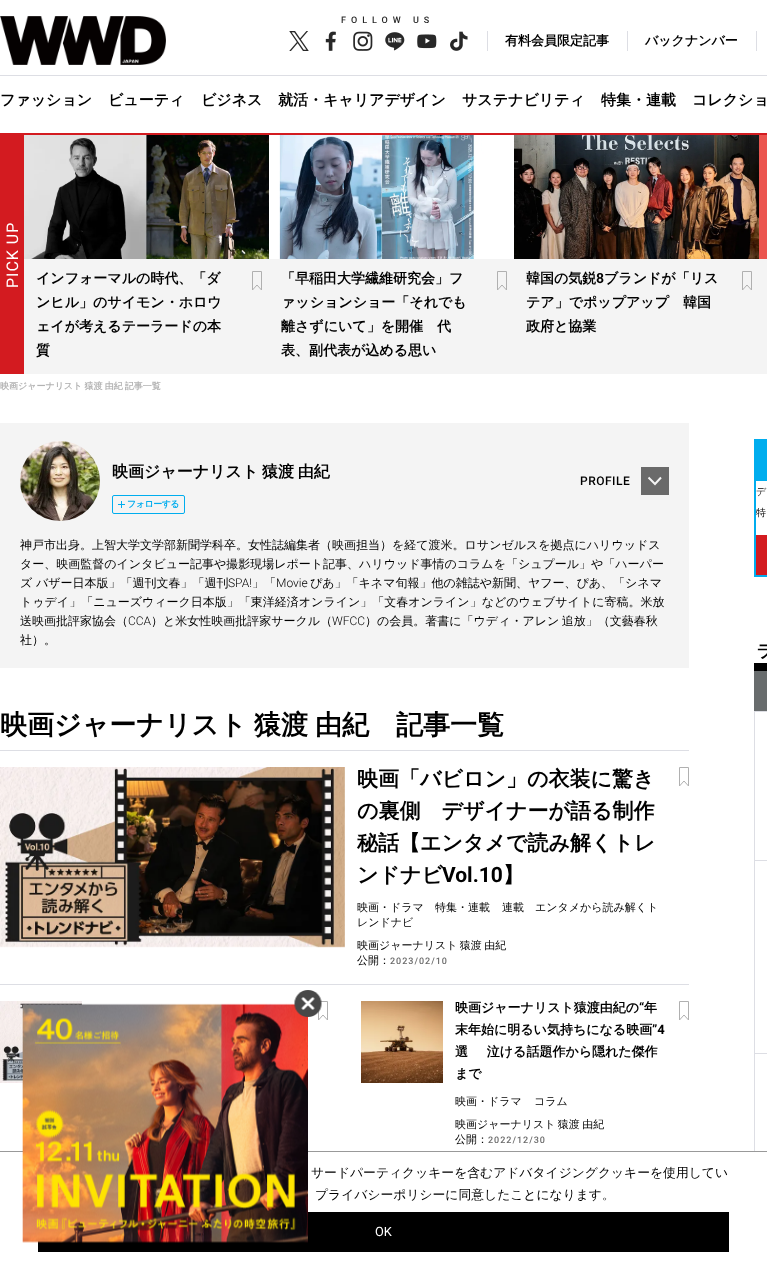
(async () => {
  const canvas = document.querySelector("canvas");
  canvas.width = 767;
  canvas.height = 1262;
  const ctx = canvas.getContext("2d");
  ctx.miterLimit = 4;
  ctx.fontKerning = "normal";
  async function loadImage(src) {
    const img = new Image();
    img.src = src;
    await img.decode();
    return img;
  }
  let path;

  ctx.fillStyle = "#ffffff";
  ctx.fillRect(0, 0, 767, 1262);
  ctx.fillStyle = "#d31b20";
  ctx.fillRect(0, 133, 767, 2);
  ctx.drawImage(await loadImage("img/1.png"), 0, 16, 166, 49);
  ctx.drawImage(await loadImage("img/2.png"), 289, 31, 20, 20);
  ctx.drawImage(await loadImage("img/3.png"), 325, 31, 11, 20);
  ctx.drawImage(await loadImage("img/4.png"), 353, 31, 20, 20);
  ctx.drawImage(await loadImage("img/5.png"), 385, 32, 20, 19);
  ctx.drawImage(await loadImage("img/6.png"), 417, 34, 20, 15);
  ctx.drawImage(await loadImage("img/7.png"), 450, 31, 18, 20);
  for (const [x, y, w, h, color] of [
    [487, 31, 1, 20, "#dddee4"],
    [627, 31, 1, 20, "#dddee4"],
    [756, 31, 1, 20, "#dddee4"],
    [0, 75, 767, 1, "#dddee4"],
    [24, 259, 743, 115, "#f4f4f4"],
    [0, 135, 24, 239, "#d31b20"],
    [759, 135, 8, 124, "#eb554f"],
  ]) {
    ctx.fillStyle = color;
    ctx.fillRect(x, y, w, h);
  }
  ctx.drawImage(await loadImage("img/8.png"), 24, 135, 245, 124);
  path = new Path2D("M252.5 271.5V290L257 285L261.5 290V271.5Z");
  ctx.strokeStyle = "#b0b0b0";
  ctx.stroke(path);
  ctx.drawImage(await loadImage("img/9.png"), 269, 135, 245, 124);
  path = new Path2D("M497.5 271.5V290L502 285L506.5 290V271.5Z");
  ctx.stroke(path);
  ctx.drawImage(await loadImage("img/10.png"), 514, 135, 245, 124);
  path = new Path2D("M742.5 271.5V290L747 285L751.5 290V271.5Z");
  ctx.stroke(path);
  ctx.fillStyle = "#f4f4f4";
  ctx.fillRect(0, 423, 689, 245);
  ctx.drawImage(await loadImage("img/11.png"), 20, 441, 80, 80);
  ctx.beginPath();
  ctx.roundRect(112.5, 495.5, 72, 18, 1.5);
  ctx.strokeStyle = "#00adee";
  ctx.stroke();
  path = new Path2D("M118 504.5H125M121.5 508V501");
  ctx.strokeStyle = "#00adef";
  ctx.stroke(path);
  ctx.fillStyle = "#6a6a6a";
  ctx.fillRect(641, 467, 28, 28);
  path = new Path2D("M661 477.5L655 484L648.5 477.5");
  ctx.strokeStyle = "#f4f4f4";
  ctx.lineWidth = 2;
  ctx.stroke(path);
  ctx.fillStyle = "#dddee4";
  ctx.fillRect(0, 750, 689, 1);
  ctx.drawImage(await loadImage("img/12.png"), 0, 767, 345, 181);
  path = new Path2D("M679.5 767.5V786L684 781L688.5 786V767.5Z");
  ctx.strokeStyle = "#b0b0b0";
  ctx.lineWidth = 1;
  ctx.stroke(path);
  ctx.fillRect(0, 984, 689, 1);
  ctx.drawImage(await loadImage("img/13.png"), 0, 1001, 82, 82);
  path = new Path2D("M318.5 1001.5V1020L323 1015L327.5 1020V1001.5Z");
  ctx.stroke(path);
  ctx.drawImage(await loadImage("img/14.png"), 361, 1001, 82, 82);
  path = new Path2D("M679.5 1001.5V1020L684 1015L688.5 1020V1001.5Z");
  ctx.stroke(path);
  ctx.fillStyle = "#00adee";
  ctx.fillRect(754, 439, 13, 40);
  ctx.strokeStyle = "#00adee";
  ctx.lineWidth = 2;
  ctx.strokeRect(755, 480, 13, 96);
  for (const [x, y, w, h, color] of [
    [756, 535, 11, 40, "#d31b20"],
    [754, 663, 13, 8, "#000000"],
    [754, 671, 13, 40, "#686c6d"],
    [754, 711, 13, 1, "#dddee4"],
    [754, 711, 1, 440, "#dddee4"],
    [755, 860, 12, 1, "#dddee4"],
    [755, 1053, 12, 1, "#dddee4"],
    [0, 1151, 767, 1, "#999999"],
    [38, 1212, 691, 40, "#000000"],
  ]) {
    ctx.fillStyle = color;
    ctx.fillRect(x, y, w, h);
  }
  ctx.drawImage(await loadImage("img/16.png"), 22, 1003, 286, 240);
  ctx.drawImage(await loadImage("img/15.png"), 294, 990, 28, 27);
  ctx.letterSpacing = "5px";
  ctx.font = "500 9px Roboto";
  ctx.fillStyle = "#282828";
  ctx.fillText("FOLLOW US", 341, 23);
  ctx.letterSpacing = "0px";
  ctx.font = "bold 13px WenQuanYi Zen Hei";
  ctx.fillStyle = "#000000";
  ctx.fillText("有料会員限定記事", 505, 45);
  ctx.fillText("バックナンバー", 645, 45);
  ctx.font = "bold 15px WenQuanYi Zen Hei";
  for (const [text, x, y] of [
    ["ファッション", 0, 105],
    ["ビューティ", 108, 105],
    ["ビジネス", 201, 105],
    ["就活・キャリアデザイン", 278, 105],
    ["サステナビリティ", 462, 105],
    ["特集・連載", 601, 105],
    ["コレクショ", 692, 105],
  ]) {
    ctx.fillText(text, x, y);
  }
  ctx.letterSpacing = "1px";
  ctx.font = "16px Roboto";
  ctx.fillStyle = "#ffffff";
  ctx.save();
  ctx.translate(18, 288);
  ctx.rotate(-90 * Math.PI / 180);
  ctx.fillText("PICK UP", 0, 0);
  ctx.restore();
  ctx.letterSpacing = "0px";
  ctx.font = "bold 14px WenQuanYi Zen Hei";
  ctx.fillStyle = "#000000";
  for (const [text, x, y] of [
    ["インフォーマルの時代、「ダ", 36, 283],
    ["ンヒル」のサイモン・ホロウ", 36, 307],
    ["ェイが考えるテーラードの本", 36, 331],
    ["質", 36, 355],
    ["「早稲田大学繊維研究会」フ", 281, 283],
    ["ァッションショー「それでも", 281, 307],
    ["離さずにいて」を開催　代", 281, 331],
    ["表、副代表が込める思い", 281, 355],
    ["韓国の気鋭", 526, 283],
  ]) {
    ctx.fillText(text, x, y);
  }
  ctx.font = "bold 14px Roboto";
  ctx.fillText("8", 596, 283);
  ctx.font = "bold 14px WenQuanYi Zen Hei";
  for (const [text, x, y] of [
    ["ブランドが「リス", 604, 283],
    ["テア」でポップアップ　韓国", 526, 307],
    ["政府と協業", 526, 331],
  ]) {
    ctx.fillText(text, x, y);
  }
  ctx.wordSpacing = "-0.5px";
  ctx.font = "bold 9px WenQuanYi Zen Hei";
  ctx.fillStyle = "#b3b3b3";
  ctx.fillText("映画ジャーナリスト 猿渡 由紀 記事一覧", 0, 389);
  ctx.wordSpacing = "-1px";
  ctx.font = "bold 16px WenQuanYi Zen Hei";
  ctx.fillStyle = "#000000";
  ctx.fillText("映画ジャーナリスト 猿渡 由紀", 112, 477);
  ctx.letterSpacing = "-0.5px";
  ctx.wordSpacing = "0px";
  ctx.font = "bold 9px WenQuanYi Zen Hei";
  ctx.fillStyle = "#00adee";
  ctx.fillText("フォローする", 127, 507);
  ctx.letterSpacing = "0.5px";
  ctx.font = "500 12px Roboto";
  ctx.fillStyle = "#000000";
  ctx.fillText("PROFILE", 580, 485);
  ctx.letterSpacing = "0px";
  ctx.font = "500 12px WenQuanYi Zen Hei";
  for (const [text, x, y] of [
    ["神戸市出身。上智大学文学部新聞学科卒。女性誌編集者（映画担当）を経て渡米。ロサンゼルスを拠点にハリウッドス", 20, 549],
    ["ター、映画監督のインタビュー記事や撮影現場レポート記事、ハリウッド事情のコラムを「シュプール」や「ハーパー", 20, 568],
    ["ズ バザー日本版」「週刊文春」「週刊", 20, 587],
  ]) {
    ctx.fillText(text, x, y);
  }
  ctx.font = "300 12px Roboto";
  ctx.fillText("SPA!", 228, 587);
  ctx.font = "500 12px WenQuanYi Zen Hei";
  ctx.fillText("」「", 252, 587);
  ctx.font = "300 12px Roboto";
  ctx.fillText("Movie", 276, 587);
  ctx.font = "500 12px WenQuanYi Zen Hei";
  for (const [text, x, y] of [
    ["ぴあ」「キネマ旬報」他の雑誌や新聞、ヤフー、ぴあ、「シネマ", 310, 587],
    ["トゥデイ」「ニューズウィーク日本版」「東洋経済オンライン」「文春オンライン」などのウェブサイトに寄稿。米放", 20, 606],
    ["送映画批評家協会（", 20, 625],
  ]) {
    ctx.fillText(text, x, y);
  }
  ctx.font = "300 12px Roboto";
  ctx.fillText("CCA", 128, 625);
  ctx.font = "500 12px WenQuanYi Zen Hei";
  ctx.fillText("）と米女性映画批評家サークル（", 151, 625);
  ctx.font = "300 12px Roboto";
  ctx.fillText("WFCC", 332, 625);
  ctx.wordSpacing = "-1px";
  ctx.font = "500 12px WenQuanYi Zen Hei";
  ctx.fillText("）の会員。著書に「ウディ・アレン 追放」（文藝春秋", 365, 625);
  ctx.wordSpacing = "0px";
  ctx.fillText("社）。", 20, 644);
  ctx.wordSpacing = "-1px";
  ctx.font = "bold 27px WenQuanYi Zen Hei";
  ctx.fillText("映画ジャーナリスト 猿渡 由紀　記事一覧", 0, 734);
  ctx.wordSpacing = "0px";
  ctx.font = "bold 21px WenQuanYi Zen Hei";
  for (const [text, x, y] of [
    ["映画「バビロン」の衣装に驚き", 357, 786],
    ["の裏側　デザイナーが語る制作", 357, 818],
    ["秘話【エンタメで読み解くトレ", 357, 850],
    ["ンドナビ", 357, 882],
  ]) {
    ctx.fillText(text, x, y);
  }
  ctx.font = "bold 21px Roboto";
  ctx.fillText("Vol.10", 442, 882);
  ctx.font = "bold 21px WenQuanYi Zen Hei";
  ctx.fillText("】", 503, 882);
  ctx.font = "500 11px WenQuanYi Zen Hei";
  for (const [text, x, y] of [
    ["映画・ドラマ", 357, 911],
    ["特集・連載", 435, 911],
    ["連載　エンタメから読み解くト", 502, 911],
    ["レンドナビ", 357, 926],
  ]) {
    ctx.fillText(text, x, y);
  }
  ctx.wordSpacing = "-1px";
  ctx.fillText("映画ジャーナリスト 猿渡 由紀", 357, 949);
  ctx.wordSpacing = "0px";
  ctx.fillText("公開：", 357, 964);
  ctx.letterSpacing = "1px";
  ctx.font = "500 9px Roboto";
  ctx.fillStyle = "#6a6a6a";
  ctx.fillText("2023/02/10", 390, 964);
  ctx.letterSpacing = "0px";
  ctx.font = "bold 13px WenQuanYi Zen Hei";
  ctx.fillStyle = "#000000";
  ctx.fillText("映画ジャーナリスト猿渡由紀の", 455, 1012);
  ctx.font = "bold 13px Roboto";
  ctx.fillText("“", 639, 1012);
  ctx.font = "bold 13px WenQuanYi Zen Hei";
  ctx.fillText("年", 644, 1012);
  ctx.fillText("末年始に明るい気持ちになる映画", 455, 1034);
  ctx.font = "bold 13px Roboto";
  ctx.fillText("”4", 652, 1034);
  ctx.wordSpacing = "-1px";
  ctx.font = "bold 13px WenQuanYi Zen Hei";
  ctx.fillText("選 　 泣ける話題作から隠れた傑作", 455, 1056);
  ctx.wordSpacing = "0px";
  ctx.fillText("まで", 455, 1078);
  ctx.font = "500 11px WenQuanYi Zen Hei";
  ctx.fillText("映画・ドラマ", 455, 1105);
  ctx.fillText("コラム", 534, 1105);
  ctx.wordSpacing = "-1px";
  ctx.fillText("映画ジャーナリスト 猿渡 由紀", 455, 1128);
  ctx.wordSpacing = "0px";
  ctx.fillText("公開：", 455, 1143);
  ctx.letterSpacing = "1px";
  ctx.font = "500 9px Roboto";
  ctx.fillStyle = "#6a6a6a";
  ctx.fillText("2022/12/30", 488, 1143);
  ctx.letterSpacing = "0px";
  ctx.font = "500 10px WenQuanYi Zen Hei";
  ctx.fillStyle = "#000000";
  ctx.fillText("デ", 756, 495);
  ctx.fillText("特", 756, 516);
  ctx.font = "bold 17px WenQuanYi Zen Hei";
  ctx.fillText("ラ", 756, 657);
  ctx.font = "500 12.8px WenQuanYi Zen Hei";
  ctx.fillText("サードパーティクッキーを含むアドバタイジングクッキーを使用してい", 311, 1177);
  ctx.fillText("プライバシーポリシーに同意したことになります。", 315, 1199);
  ctx.font = "12.8px Roboto";
  ctx.fillStyle = "#ffffff";
  ctx.fillText("OK", 375, 1236);
})();
